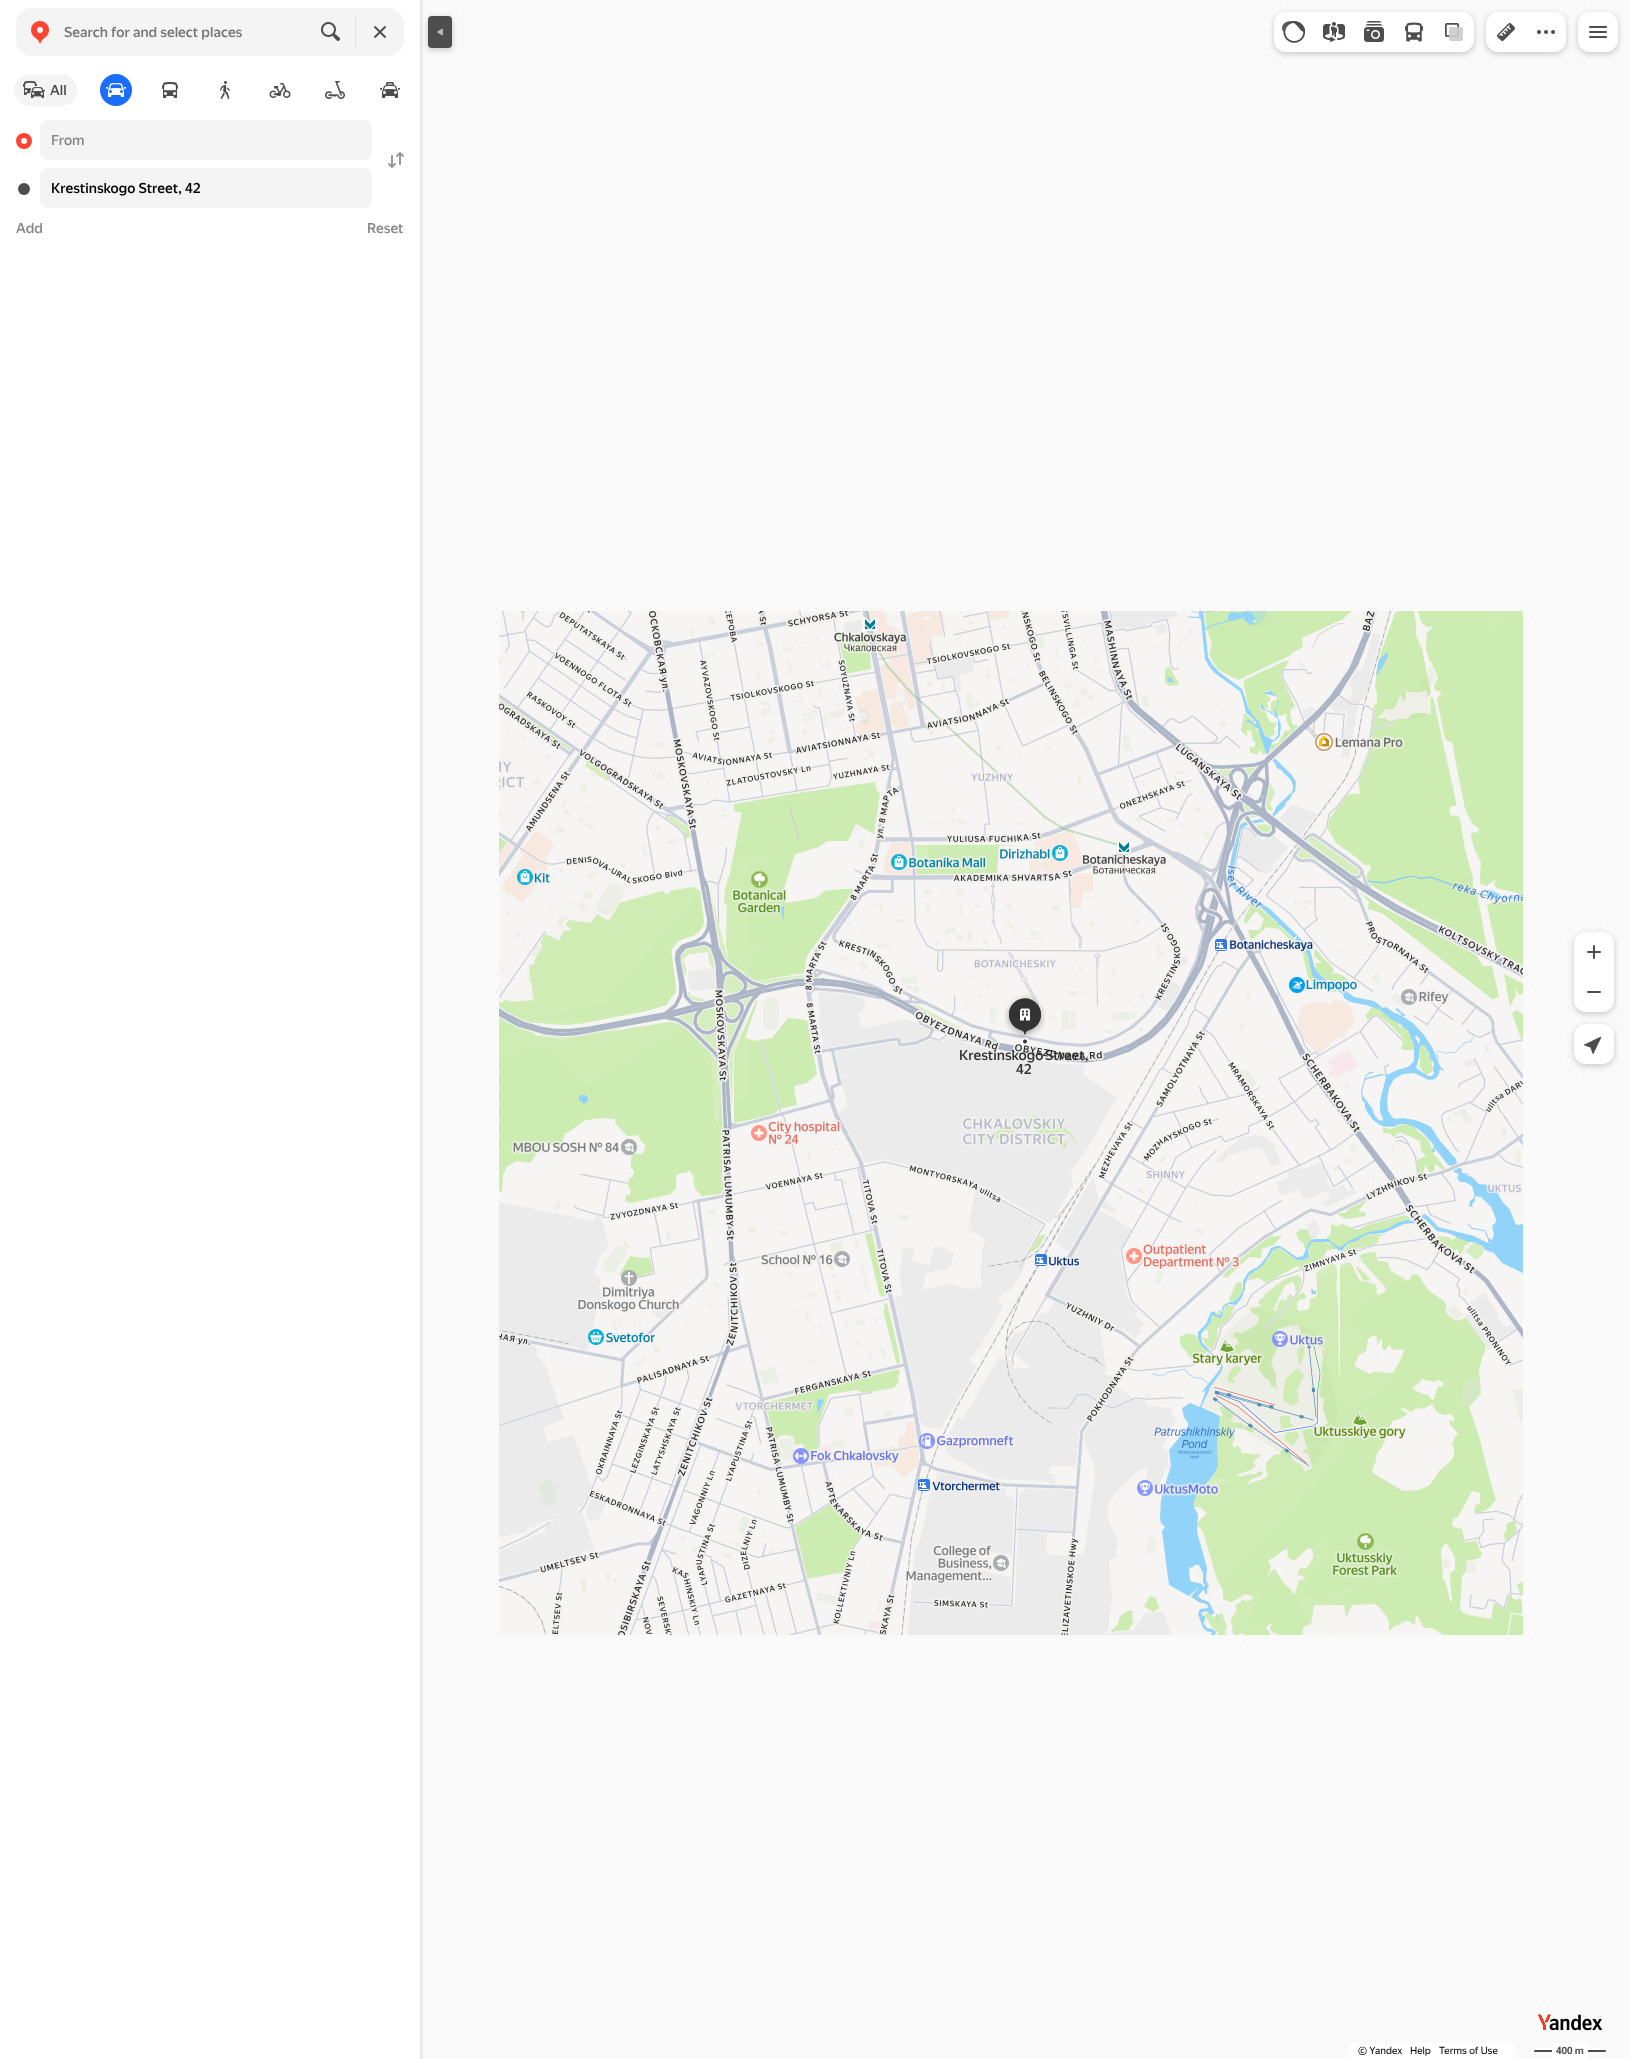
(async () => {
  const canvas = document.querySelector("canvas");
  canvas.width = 1630;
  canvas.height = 2059;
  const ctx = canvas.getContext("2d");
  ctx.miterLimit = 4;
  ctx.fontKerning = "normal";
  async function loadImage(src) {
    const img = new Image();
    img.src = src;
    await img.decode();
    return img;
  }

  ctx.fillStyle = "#ffffff";
  ctx.fillRect(0, 0, 1630, 2059);
  ctx.drawImage(await loadImage("img/1.png"), 420, 0, 1210, 2059);
  ctx.fillStyle = "rgba(0, 0, 0, 0.1)";
  ctx.filter = "blur(1px)";
  ctx.beginPath();
  ctx.rect(2, 0, 420, 2059);
  ctx.fill();
  ctx.filter = "none";
  ctx.fillStyle = "rgba(0, 0, 0, 0.2)";
  ctx.filter = "blur(3px)";
  ctx.beginPath();
  ctx.roundRect(428, 18, 24, 32, 4);
  ctx.fill();
  ctx.filter = "none";
  ctx.fillStyle = "#ffffff";
  ctx.fillRect(1, 0, 419, 2059);
  ctx.fillStyle = "#f4f4f4";
  ctx.beginPath();
  ctx.roundRect(16, 8, 388, 48, 16);
  ctx.fill();
  ctx.drawImage(await loadImage("img/2.png"), 31, 21, 18, 23);
  ctx.drawImage(await loadImage("img/3.png"), 321, 22, 19, 19);
  ctx.fillStyle = "#e0e0e0";
  ctx.fillRect(355, 16, 1, 32);
  ctx.drawImage(await loadImage("img/4.png"), 374, 26, 12, 12);
  ctx.fillStyle = "rgba(0, 0, 0, 0.2)";
  ctx.filter = "blur(3px)";
  ctx.beginPath();
  ctx.roundRect(1274, 14, 200, 40, 12);
  ctx.fill();
  ctx.filter = "none";
  ctx.fillStyle = "#ffffff";
  ctx.beginPath();
  ctx.roundRect(1274, 12, 40, 40, [12, 0, 0, 12]);
  ctx.fill();
  ctx.drawImage(await loadImage("img/5.png"), 1282, 21, 24, 22);
  ctx.fillRect(1314, 12, 120, 40);
  ctx.drawImage(await loadImage("img/6.png"), 1323, 22, 22, 20);
  ctx.beginPath();
  ctx.roundRect(1434, 12, 40, 40, [0, 12, 12, 0]);
  ctx.fill();
  ctx.drawImage(await loadImage("img/7.png"), 1445, 23, 18, 18);
  ctx.drawImage(await loadImage("img/8.png"), 1364, 21, 20, 21);
  ctx.drawImage(await loadImage("img/9.png"), 1405, 22, 18, 20);
  ctx.fillStyle = "rgba(0, 0, 0, 0.2)";
  ctx.filter = "blur(3px)";
  ctx.beginPath();
  ctx.roundRect(1486, 14, 80, 40, 12);
  ctx.fill();
  ctx.filter = "none";
  ctx.fillStyle = "#ffffff";
  ctx.beginPath();
  ctx.roundRect(1486, 12, 40, 40, [12, 0, 0, 12]);
  ctx.fill();
  ctx.drawImage(await loadImage("img/10.png"), 1497, 23, 18, 18);
  ctx.beginPath();
  ctx.roundRect(1526, 12, 40, 40, [0, 12, 12, 0]);
  ctx.fill();
  ctx.drawImage(await loadImage("img/11.png"), 1537, 30, 18, 4);
  ctx.fillStyle = "rgba(0, 0, 0, 0.2)";
  ctx.filter = "blur(3px)";
  ctx.beginPath();
  ctx.roundRect(1578, 14, 40, 40, 12);
  ctx.fill();
  ctx.filter = "none";
  ctx.fillStyle = "#ffffff";
  ctx.beginPath();
  ctx.roundRect(1578, 12, 40, 40, 12);
  ctx.fill();
  ctx.drawImage(await loadImage("img/12.png"), 1589, 26, 18, 12);
  ctx.fillStyle = "rgba(0, 0, 0, 0.2)";
  ctx.filter = "blur(3px)";
  ctx.beginPath();
  ctx.roundRect(1574, 934, 40, 80, 12);
  ctx.fill();
  ctx.filter = "none";
  ctx.fillStyle = "#ffffff";
  ctx.beginPath();
  ctx.roundRect(1574, 932, 40, 40, [12, 12, 0, 0]);
  ctx.fill();
  ctx.drawImage(await loadImage("img/13.png"), 1587, 945, 14, 14);
  ctx.beginPath();
  ctx.roundRect(1574, 972, 40, 40, [0, 0, 12, 12]);
  ctx.fill();
  ctx.drawImage(await loadImage("img/14.png"), 1587, 991, 14, 2);
  ctx.fillStyle = "rgba(0, 0, 0, 0.2)";
  ctx.filter = "blur(3px)";
  ctx.beginPath();
  ctx.roundRect(1574, 1026, 40, 40, 12);
  ctx.fill();
  ctx.filter = "none";
  ctx.fillStyle = "#ffffff";
  ctx.beginPath();
  ctx.roundRect(1574, 1024, 40, 40, 12);
  ctx.fill();
  ctx.drawImage(await loadImage("img/15.png"), 1584, 1036, 18, 18);
  ctx.fillStyle = "#4d4d4d";
  ctx.beginPath();
  ctx.roundRect(428, 16, 24, 32, 4);
  ctx.fill();
  ctx.drawImage(await loadImage("img/16.png"), 437, 28, 6, 8);
  ctx.fillStyle = "#f4f4f4";
  ctx.beginPath();
  ctx.roundRect(14, 74, 63, 32, 16);
  ctx.fill();
  ctx.drawImage(await loadImage("img/17.png"), 23, 81, 22, 17);
  ctx.fillStyle = "#196dff";
  ctx.beginPath();
  ctx.arc(116, 90, 16, 0, Math.PI * 2);
  ctx.fill();
  ctx.drawImage(await loadImage("img/18.png"), 106, 83, 20, 14);
  ctx.drawImage(await loadImage("img/19.png"), 162, 82, 16, 16);
  ctx.drawImage(await loadImage("img/20.png"), 220, 81, 10, 18);
  ctx.drawImage(await loadImage("img/21.png"), 269, 83, 22, 15);
  ctx.drawImage(await loadImage("img/22.png"), 325, 81, 20, 18);
  ctx.drawImage(await loadImage("img/23.png"), 380, 82, 20, 16);
  ctx.fillStyle = "#ff4433";
  ctx.beginPath();
  ctx.arc(24, 141, 7, 0, Math.PI * 2);
  ctx.fill();
  ctx.strokeStyle = "#ff4433";
  ctx.lineWidth = 2;
  ctx.stroke();
  ctx.fillStyle = "#ffffff";
  ctx.beginPath();
  ctx.arc(24, 141, 3, 0, Math.PI * 2);
  ctx.fill();
  ctx.fillStyle = "#f4f4f4";
  ctx.beginPath();
  ctx.roundRect(40, 120, 332, 40, 8);
  ctx.fill();
  ctx.fillStyle = "#4d4d4d";
  ctx.beginPath();
  ctx.arc(24, 189, 6, 0, Math.PI * 2);
  ctx.fill();
  ctx.fillStyle = "#f4f4f4";
  ctx.beginPath();
  ctx.roundRect(40, 168, 332, 40, 8);
  ctx.fill();
  ctx.drawImage(await loadImage("img/24.png"), 388, 152, 16, 16);
  ctx.drawImage(await loadImage("img/25.png"), 1536, 2014, 67, 18);
  ctx.fillStyle = "#ffffff";
  ctx.beginPath();
  ctx.roundRect(1350, 2043, 164, 16, [4, 4, 0, 0]);
  ctx.fill();
  ctx.fillStyle = "rgba(255, 255, 255, 0.6)";
  ctx.beginPath();
  ctx.roundRect(1532, 2048, 76, 6, 3);
  ctx.fill();
  ctx.fillStyle = "#4d4d4d";
  ctx.beginPath();
  ctx.roundRect(1534, 2050, 72, 2, 1);
  ctx.fill();
  ctx.fillStyle = "#ffffff";
  ctx.beginPath();
  ctx.roundRect(1552, 2043, 36, 16, [4, 4, 0, 0]);
  ctx.fill();
  ctx.drawImage(await loadImage("img/26.png"), 499, 611, 256, 256);
  ctx.drawImage(await loadImage("img/27.png"), 755, 611, 256, 256);
  ctx.drawImage(await loadImage("img/28.png"), 1011, 611, 256, 256);
  ctx.drawImage(await loadImage("img/29.png"), 1267, 611, 256, 256);
  ctx.drawImage(await loadImage("img/30.png"), 499, 867, 256, 256);
  ctx.drawImage(await loadImage("img/31.png"), 755, 867, 256, 256);
  ctx.drawImage(await loadImage("img/32.png"), 1011, 867, 256, 256);
  ctx.drawImage(await loadImage("img/33.png"), 1267, 867, 256, 256);
  ctx.drawImage(await loadImage("img/34.png"), 499, 1123, 256, 256);
  ctx.drawImage(await loadImage("img/35.png"), 755, 1123, 256, 256);
  ctx.drawImage(await loadImage("img/36.png"), 1011, 1123, 256, 256);
  ctx.drawImage(await loadImage("img/37.png"), 1267, 1123, 256, 256);
  ctx.drawImage(await loadImage("img/38.png"), 499, 1379, 256, 256);
  ctx.drawImage(await loadImage("img/39.png"), 755, 1379, 256, 256);
  ctx.drawImage(await loadImage("img/40.png"), 1011, 1379, 256, 256);
  ctx.drawImage(await loadImage("img/41.png"), 1267, 1379, 256, 256);
  ctx.drawImage(await loadImage("img/42.png"), 1004, 995, 42, 51);
  ctx.drawImage(await loadImage("img/43.png"), 1020, 1008, 10, 13);
  ctx.font = "500 14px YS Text";
  ctx.fillStyle = "#757575";
  ctx.fillText("Search for and select places", 64, 37);
  ctx.fillStyle = "#4d4d4d";
  ctx.fillText("All", 50, 95);
  ctx.fillStyle = "#878787";
  ctx.fillText("From", 51, 145);
  ctx.fillStyle = "#000000";
  ctx.fillText("Krestinskogo Street, 42", 51, 193);
  ctx.fillStyle = "#878787";
  ctx.fillText("Add", 16, 233);
  ctx.fillText("Reset", 367, 233);
  ctx.font = "10px YS Text";
  ctx.fillStyle = "#000000";
  for (const [text, x, y] of [
    ["© Yandex", 1358, 2054],
    ["Help", 1410, 2054],
    ["Terms of Use", 1439, 2054],
  ]) {
    ctx.fillText(text, x, y);
  }
  ctx.font = "bold 10px YS Text";
  ctx.fillStyle = "#4d4d4d";
  ctx.fillText("400 m", 1556, 2054);
  ctx.font = "500 14px YS Text";
  ctx.fillStyle = "#333333";
  for (const [text, x, y] of [
    ["Krestinskogo", 959, 1060],
    ["Street,", 1045, 1060],
    ["42", 1016, 1074],
  ]) {
    ctx.fillText(text, x, y);
  }
})();
